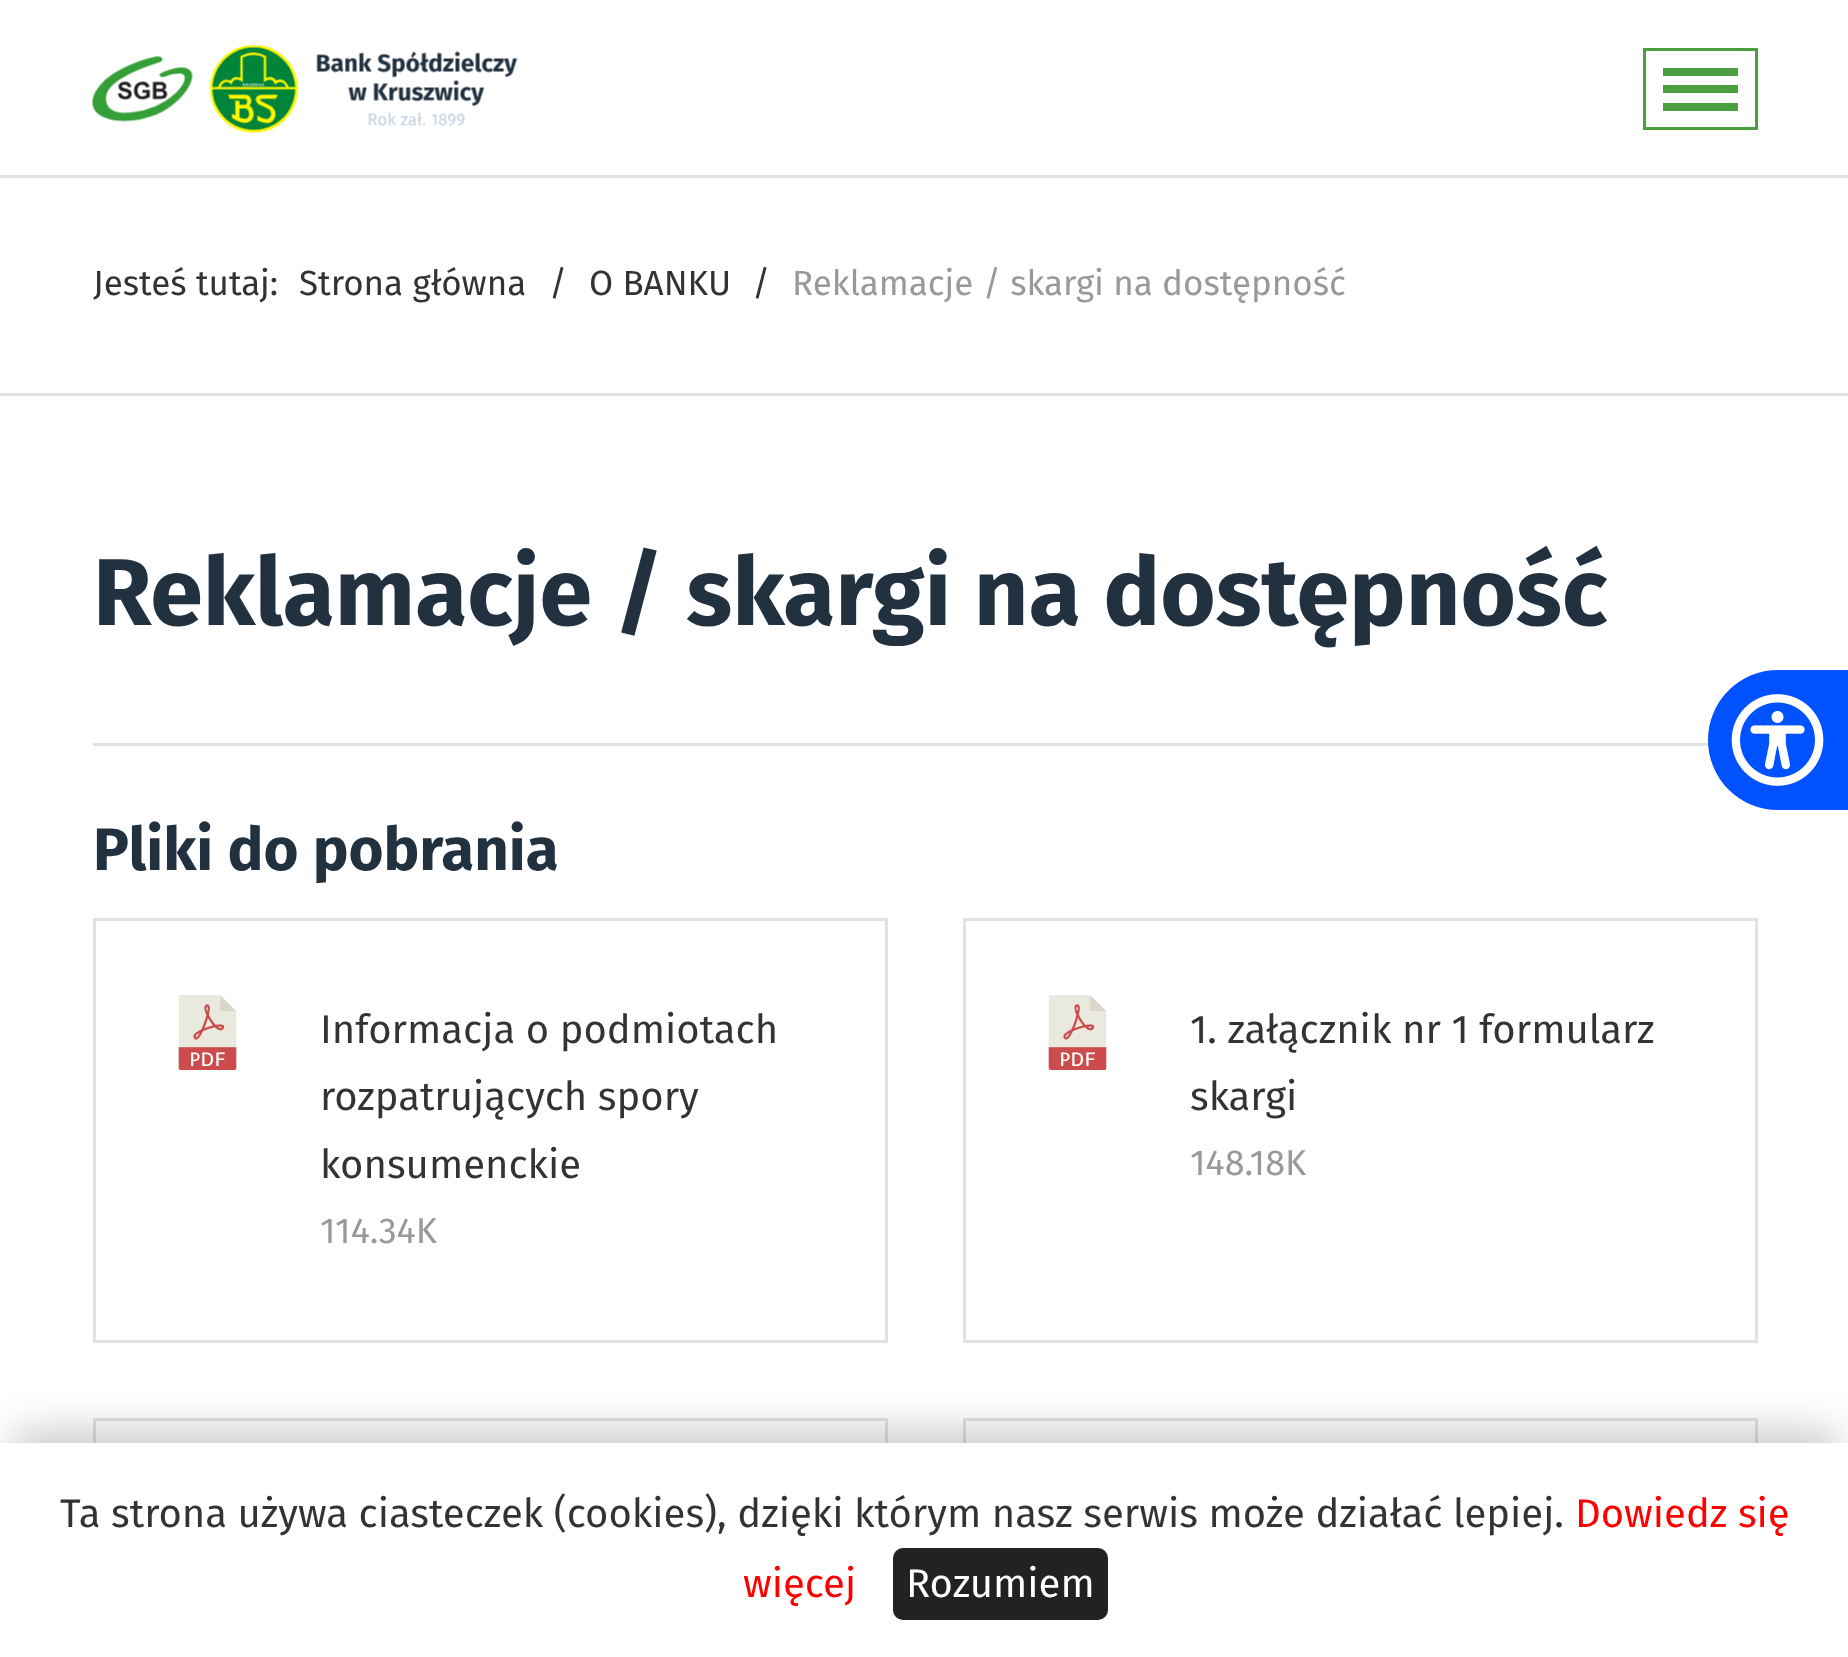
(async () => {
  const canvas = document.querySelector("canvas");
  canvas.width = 1848;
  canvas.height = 1657;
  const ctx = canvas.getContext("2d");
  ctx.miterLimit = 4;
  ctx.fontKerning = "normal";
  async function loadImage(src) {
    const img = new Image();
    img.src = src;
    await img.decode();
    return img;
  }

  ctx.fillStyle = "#ffffff";
  ctx.fillRect(0, 0, 1848, 1657);
  ctx.fillStyle = "#e2e2e2";
  ctx.fillRect(0, 175, 1848, 3);
  ctx.drawImage(await loadImage("img/1.png"), 92, 45, 426, 88);
  ctx.strokeStyle = "#4a9f3f";
  ctx.lineWidth = 3;
  ctx.strokeRect(1644.5, 49.5, 112, 79);
  for (const [x, y, w, h, color] of [
    [1663, 68, 75, 8, "#4a9f3f"],
    [1663, 85, 75, 8, "#4a9f3f"],
    [1663, 103, 75, 8, "#4a9f3f"],
    [0, 393, 1848, 3, "#e2e2e2"],
    [93, 743, 1616, 3, "#e2e2e2"],
  ]) {
    ctx.fillStyle = color;
    ctx.fillRect(x, y, w, h);
  }
  ctx.strokeStyle = "#e2e2e2";
  ctx.strokeRect(94.5, 919.5, 792, 422);
  ctx.drawImage(await loadImage("img/2.png"), 178, 995, 59, 75);
  ctx.strokeRect(964.5, 919.5, 792, 422);
  ctx.drawImage(await loadImage("img/2.png"), 1048, 995, 59, 75);
  ctx.strokeRect(94.5, 1419.5, 792, 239);
  ctx.strokeRect(964.5, 1419.5, 792, 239);
  ctx.fillStyle = "#0051ff";
  ctx.beginPath();
  ctx.roundRect(1708, 670, 140, 140, [70, 0, 0, 70]);
  ctx.fill();
  ctx.drawImage(await loadImage("img/3.png"), 1731, 694, 93, 92);
  ctx.fillStyle = "rgba(0, 0, 0, 0.2)";
  ctx.filter = "blur(19px)";
  ctx.beginPath();
  ctx.rect(13, 1430, 1825, 190);
  ctx.fill();
  ctx.filter = "none";
  ctx.fillStyle = "#ffffff";
  ctx.fillRect(0, 1443, 1848, 214);
  ctx.fillStyle = "#222222";
  ctx.beginPath();
  ctx.roundRect(893, 1548, 215, 72, 10);
  ctx.fill();
  ctx.font = "35px Fira Sans";
  ctx.fillStyle = "#333333";
  for (const [text, x, y] of [
    ["Jesteś tutaj:", 93, 295],
    ["Strona główna", 299, 295],
    ["/", 549, 295],
    ["O BANKU", 589, 295],
    ["/", 752, 295],
  ]) {
    ctx.fillText(text, x, y);
  }
  ctx.fillStyle = "#999999";
  ctx.fillText("Reklamacje / skargi na dostępność", 792, 295);
  ctx.font = "bold 95px Fira Sans";
  ctx.fillStyle = "#22313f";
  ctx.fillText("Reklamacje / skargi na dostępność", 93, 625);
  ctx.font = "bold 60px Fira Sans";
  ctx.fillText("Pliki do pobrania", 93, 870);
  ctx.font = "40px Fira Sans";
  ctx.fillStyle = "#333333";
  for (const [text, x, y] of [
    ["Informacja o podmiotach", 320, 1043],
    ["rozpatrujących spory", 320, 1110],
    ["konsumenckie", 320, 1178],
  ]) {
    ctx.fillText(text, x, y);
  }
  ctx.font = "36px Fira Sans";
  ctx.fillStyle = "#999999";
  ctx.fillText("114.34K", 320, 1243);
  ctx.font = "40px Fira Sans";
  ctx.fillStyle = "#333333";
  ctx.fillText("1. załącznik nr 1 formularz", 1190, 1043);
  ctx.fillText("skargi", 1190, 1110);
  ctx.font = "36px Fira Sans";
  ctx.fillStyle = "#999999";
  ctx.fillText("148.18K", 1190, 1175);
  ctx.font = "40px Fira Sans";
  ctx.fillStyle = "#333333";
  ctx.fillText("Ta strona używa ciasteczek (cookies), dzięki którym nasz serwis może działać lepiej.", 60, 1527);
  ctx.fillStyle = "#ff0000";
  ctx.fillText("Dowiedz się", 1575, 1527);
  ctx.fillText("więcej", 743, 1597);
  ctx.fillStyle = "#ffffff";
  ctx.fillText("Rozumiem", 906, 1597);
})();
